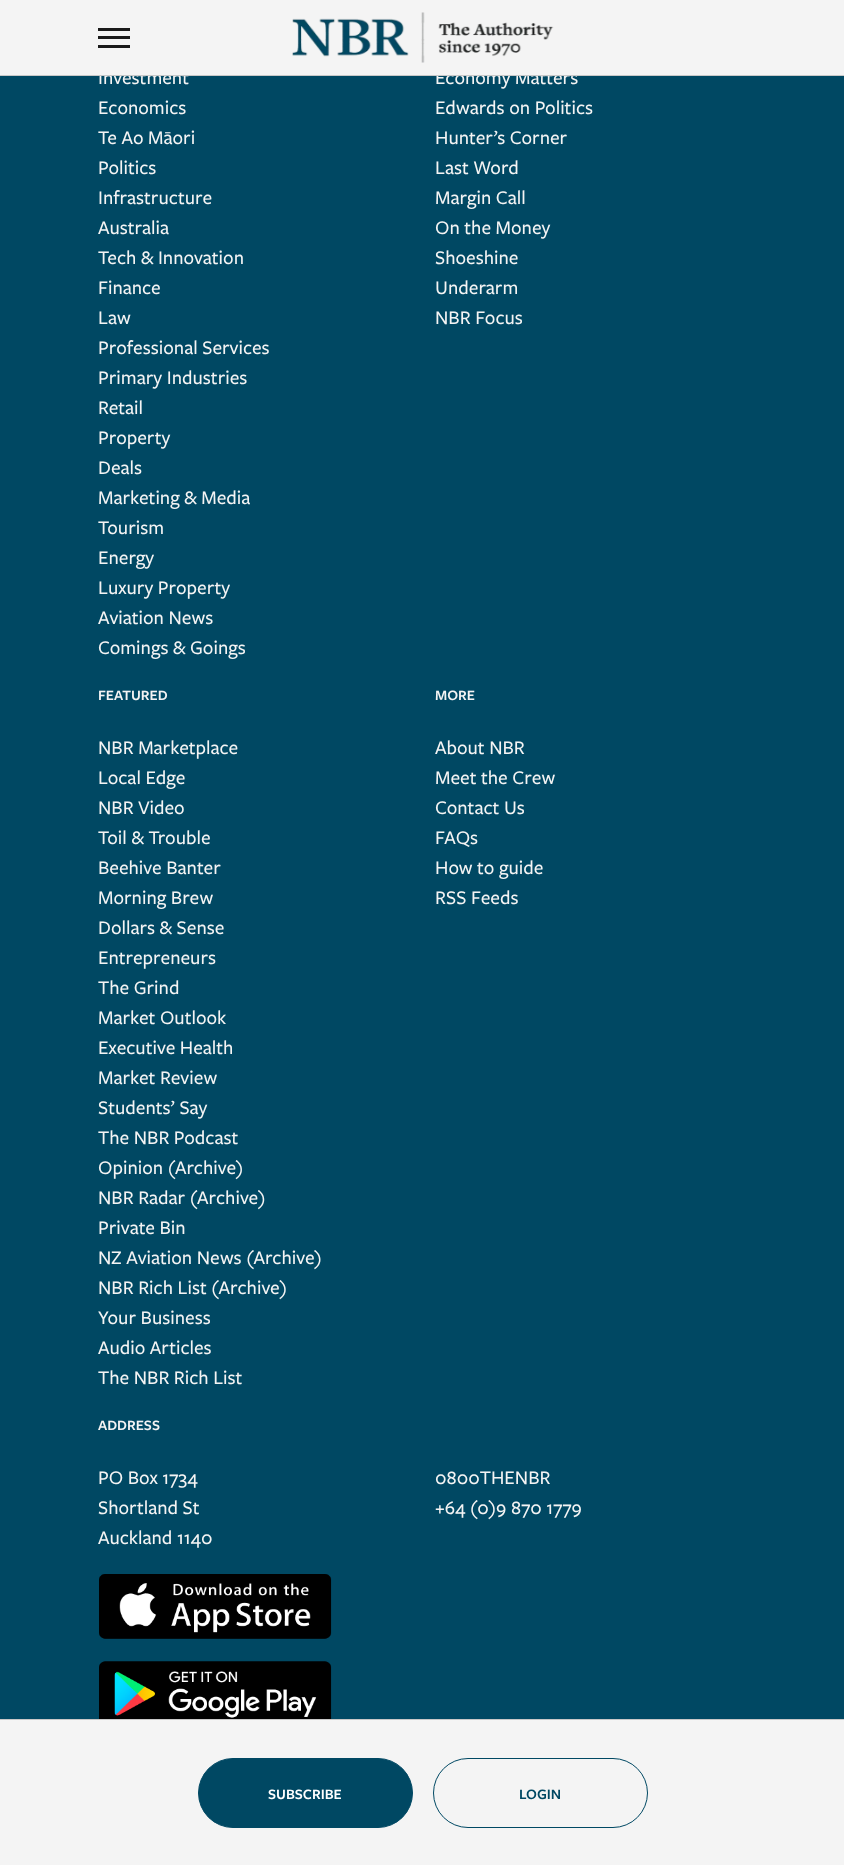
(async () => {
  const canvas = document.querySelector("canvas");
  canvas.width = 844;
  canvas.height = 1865;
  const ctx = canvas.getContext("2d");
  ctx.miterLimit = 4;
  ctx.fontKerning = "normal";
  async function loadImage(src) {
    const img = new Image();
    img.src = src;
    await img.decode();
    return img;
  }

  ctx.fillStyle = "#004863";
  ctx.fillRect(0, 0, 844, 1865);
  for (const [x, y, w, h, color] of [
    [0, 0, 844, 75, "#f4f4f4"],
    [98, 28, 32, 3, "#1a1a1a"],
    [98, 36, 32, 3, "#1a1a1a"],
    [98, 45, 32, 3, "#1a1a1a"],
  ]) {
    ctx.fillStyle = color;
    ctx.fillRect(x, y, w, h);
  }
  ctx.drawImage(await loadImage("img/1.png"), 292, 12, 262, 51);
  ctx.drawImage(await loadImage("img/2.png"), 99, 1574, 233, 65);
  ctx.drawImage(await loadImage("img/3.png"), 99, 1661, 233, 58);
  ctx.fillStyle = "#f4f4f4";
  ctx.fillRect(0, 1720, 844, 145);
  ctx.fillStyle = "#c8c8c8";
  ctx.fillRect(0, 1719, 844, 1);
  ctx.fillStyle = "#004863";
  ctx.beginPath();
  ctx.roundRect(198.5, 1758.5, 214, 69, 34.5);
  ctx.fill();
  ctx.strokeStyle = "#004863";
  ctx.stroke();
  ctx.beginPath();
  ctx.roundRect(433.5, 1758.5, 214, 69, 34.5);
  ctx.stroke();
  ctx.font = "500 20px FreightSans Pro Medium";
  ctx.fillStyle = "#f4f4f4";
  for (const [text, x, y] of [
    ["Investment", 98, 84],
    ["Economics", 98, 114],
    ["Te Ao Māori", 98, 144],
    ["Politics", 98, 174],
    ["Infrastructure", 98, 204],
    ["Australia", 98, 234],
    ["Tech & Innovation", 98, 264],
    ["Finance", 98, 294],
    ["Law", 98, 324],
    ["Professional Services", 98, 354],
    ["Primary Industries", 98, 384],
    ["Retail", 98, 414],
    ["Property", 98, 444],
    ["Deals", 98, 474],
    ["Marketing & Media", 98, 504],
    ["Tourism", 98, 534],
    ["Energy", 98, 564],
    ["Luxury Property", 98, 594],
    ["Aviation News", 98, 624],
    ["Comings & Goings", 98, 654],
    ["Economy Matters", 435, 84],
  ]) {
    ctx.fillText(text, x, y);
  }
  ctx.fillStyle = "#c8c8c8";
  ctx.fillRect(0, 75, 844, 1);
  ctx.fillStyle = "#f4f4f4";
  for (const [text, x, y] of [
    ["Edwards on Politics", 435, 114],
    ["Hunter’s Corner", 435, 144],
    ["Last Word", 435, 174],
    ["Margin Call", 435, 204],
    ["On the Money", 435, 234],
    ["Shoeshine", 435, 264],
    ["Underarm", 435, 294],
    ["NBR Focus", 435, 324],
  ]) {
    ctx.fillText(text, x, y);
  }
  ctx.font = "600 15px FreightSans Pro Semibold";
  ctx.fillText("FEATURED", 98, 700);
  ctx.font = "500 20px FreightSans Pro Medium";
  for (const [text, x, y] of [
    ["NBR Marketplace", 98, 754],
    ["Local Edge", 98, 784],
    ["NBR Video", 98, 814],
    ["Toil & Trouble", 98, 844],
    ["Beehive Banter", 98, 874],
    ["Morning Brew", 98, 904],
    ["Dollars & Sense", 98, 934],
    ["Entrepreneurs", 98, 964],
    ["The Grind", 98, 994],
    ["Market Outlook", 98, 1024],
    ["Executive Health", 98, 1054],
    ["Market Review", 98, 1084],
    ["Students’ Say", 98, 1114],
    ["The NBR Podcast", 98, 1144],
    ["Opinion (Archive)", 98, 1174],
    ["NBR Radar (Archive)", 98, 1204],
    ["Private Bin", 98, 1234],
    ["NZ Aviation News (Archive)", 98, 1264],
    ["NBR Rich List (Archive)", 98, 1294],
    ["Your Business", 98, 1324],
    ["Audio Articles", 98, 1354],
    ["The NBR Rich List", 98, 1384],
  ]) {
    ctx.fillText(text, x, y);
  }
  ctx.font = "600 15px FreightSans Pro Semibold";
  ctx.fillText("MORE", 435, 700);
  ctx.font = "500 20px FreightSans Pro Medium";
  for (const [text, x, y] of [
    ["About NBR", 435, 754],
    ["Meet the Crew", 435, 784],
    ["Contact Us", 435, 814],
    ["FAQs", 435, 844],
    ["How to guide", 435, 874],
    ["RSS Feeds", 435, 904],
  ]) {
    ctx.fillText(text, x, y);
  }
  ctx.font = "600 15px FreightSans Pro Semibold";
  ctx.fillText("ADDRESS", 98, 1430);
  ctx.font = "500 20px FreightSans Pro Medium";
  for (const [text, x, y] of [
    ["PO Box 1734", 98, 1484],
    ["Shortland St", 98, 1514],
    ["Auckland 1140", 98, 1544],
    ["0800THENBR", 435, 1484],
    ["+64 (0)9 870 1779", 435, 1514],
  ]) {
    ctx.fillText(text, x, y);
  }
  ctx.font = "600 15px FreightSans Pro Semibold";
  ctx.fillStyle = "#ffffff";
  ctx.fillText("SUBSCRIBE", 268, 1799);
  ctx.fillStyle = "#004863";
  ctx.fillText("LOGIN", 519, 1799);
})();
